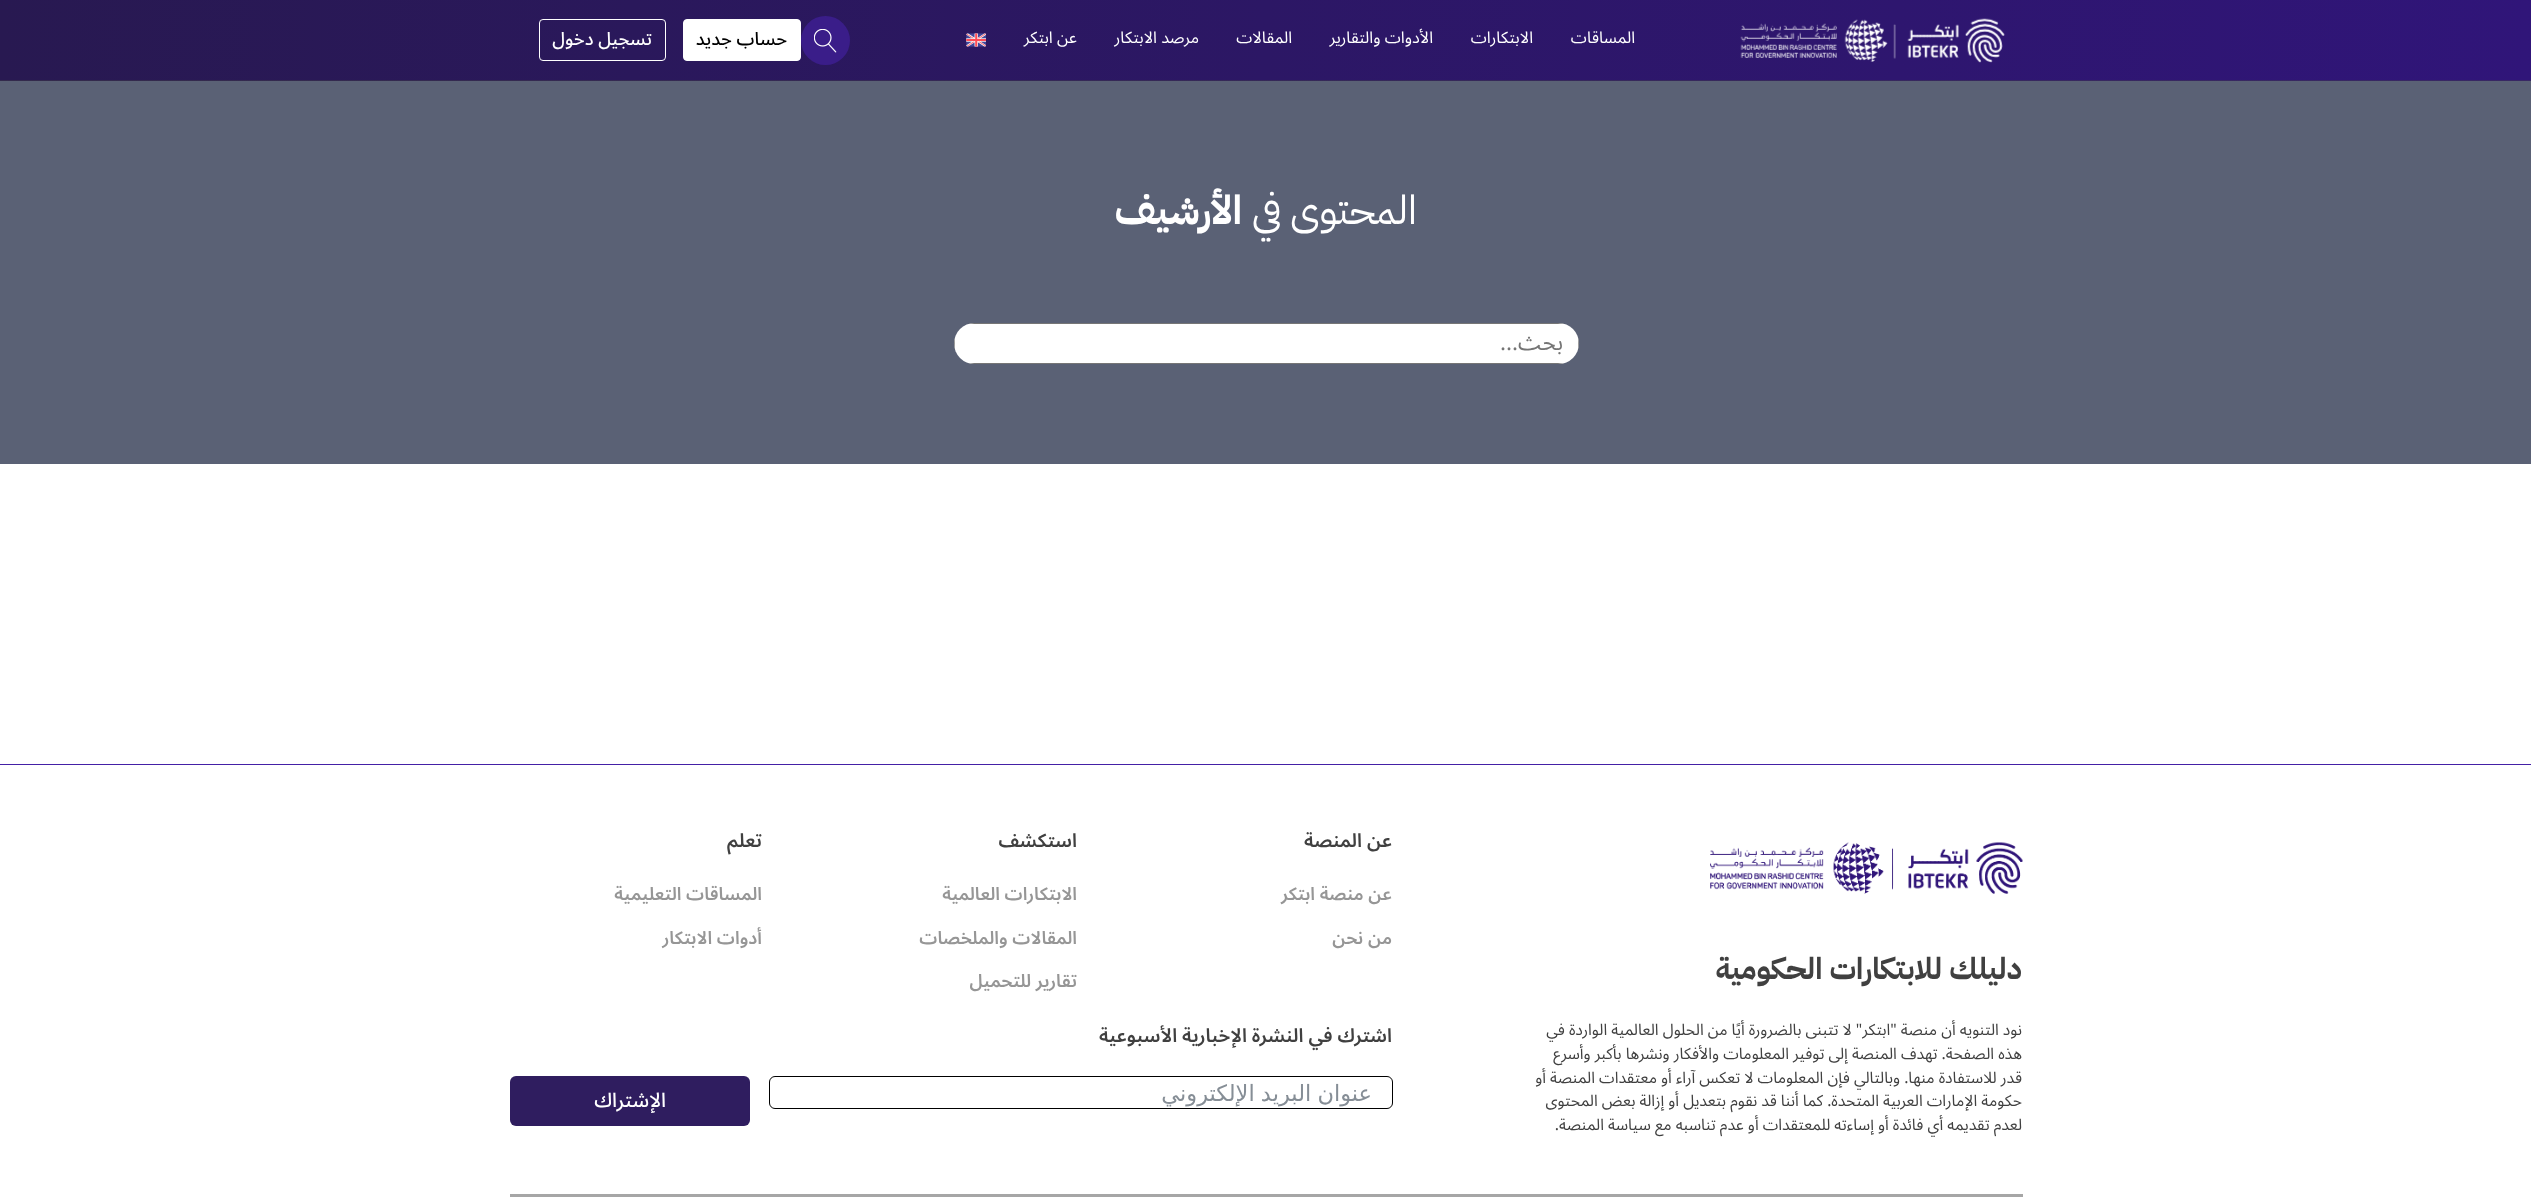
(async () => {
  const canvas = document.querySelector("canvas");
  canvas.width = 2531;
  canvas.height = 1197;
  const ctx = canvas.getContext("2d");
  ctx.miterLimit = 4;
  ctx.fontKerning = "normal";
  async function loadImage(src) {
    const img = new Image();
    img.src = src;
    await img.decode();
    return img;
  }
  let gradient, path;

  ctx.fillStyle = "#ffffff";
  ctx.fillRect(0, 0, 2531, 1197);
  gradient = ctx.createLinearGradient(0, 41, 2531, 41);
  gradient.addColorStop(0, "#281951");
  gradient.addColorStop(1, "#301579");
  ctx.fillStyle = gradient;
  ctx.fillRect(0, 0, 2531, 80);
  gradient = ctx.createLinearGradient(0, 41, 2531, 41);
  gradient.addColorStop(0, "#332a4c");
  gradient.addColorStop(1, "#382764");
  ctx.fillStyle = gradient;
  ctx.fillRect(0, 80, 2531, 1);
  ctx.drawImage(await loadImage("img/1.png"), 1740, 18, 265, 45);
  ctx.drawImage(await loadImage("img/2.png"), 966, 33, 20, 14);
  ctx.fillStyle = "#3a1d89";
  ctx.beginPath();
  ctx.arc(825.5, 40.5, 24.5, 0, Math.PI * 2);
  ctx.fill();
  ctx.drawImage(await loadImage("img/3.png"), 814, 29, 23, 24);
  ctx.fillStyle = "#ffffff";
  ctx.beginPath();
  ctx.roundRect(683.5, 19.5, 117, 41, 3.5);
  ctx.fill();
  ctx.strokeStyle = "#ffffff";
  ctx.stroke();
  ctx.beginPath();
  ctx.roundRect(539.5, 19.5, 126, 41, 3.5);
  ctx.stroke();
  ctx.fillStyle = "#5a6175";
  ctx.fillRect(0, 81, 2531, 383);
  ctx.fillStyle = "#ffffff";
  ctx.beginPath();
  ctx.roundRect(954, 323, 625, 41, 20.5);
  ctx.fill();
  ctx.fillStyle = "#767676";
  path = new Path2D("M974 364H1558L1565 363H968ZM955 350C954 346 954 341 955 337ZM974 323L968 324H1565L1558 323ZM1578 337V350C1579 346 1579 341 1578 337Z");
  ctx.fill(path, "evenodd");
  ctx.fillStyle = "#4420a6";
  ctx.fillRect(0, 764, 2531, 1);
  ctx.drawImage(await loadImage("img/4.png"), 1710, 842, 313, 52);
  ctx.beginPath();
  ctx.roundRect(769.5, 1076.5, 623, 32, 5.5);
  ctx.strokeStyle = "#000000";
  ctx.stroke();
  ctx.fillStyle = "#2f1d5f";
  ctx.beginPath();
  ctx.roundRect(510, 1076, 240, 50, 6);
  ctx.fill();
  ctx.fillStyle = "#a6a6a6";
  ctx.fillRect(510, 1194, 1513, 3);
  ctx.direction = "rtl";
  ctx.font = "16.25px Noto Sans Arabic";
  ctx.fillStyle = "#ffffff";
  for (const [text, x, y] of [
    ["المساقات", 1635, 43],
    ["الابتكارات", 1533, 43],
    ["الأدوات والتقارير", 1433, 43],
    ["المقالات", 1292, 43],
    ["مرصد الابتكار", 1199, 43],
    ["عن ابتكر", 1077, 43],
  ]) {
    ctx.fillText(text, x, y);
  }
  ctx.font = "500 18px Noto Sans Arabic";
  ctx.fillStyle = "#000000";
  ctx.fillText("حساب جديد", 787, 45);
  ctx.fillStyle = "#ffffff";
  ctx.fillText("تسجيل دخول", 652, 45);
  ctx.font = "40px IBM Plex Sans Arabic";
  ctx.fillText("المحتوى في", 1417, 224);
  ctx.font = "bold 40px IBM Plex Sans Arabic";
  ctx.fillText("الأرشيف", 1242, 224);
  ctx.font = "22.5px Noto Sans Arabic";
  ctx.fillStyle = "#757575";
  ctx.fillText("بحث...", 1563, 350);
  ctx.font = "600 19.1px Noto Sans Arabic";
  ctx.fillStyle = "#404040";
  ctx.fillText("عن المنصة", 1392, 847);
  ctx.font = "600 18px Noto Sans Arabic";
  ctx.fillStyle = "#969696";
  ctx.fillText("عن منصة ابتكر", 1392, 900);
  ctx.fillText("من نحن", 1392, 944);
  ctx.font = "600 19.1px Noto Sans Arabic";
  ctx.fillStyle = "#404040";
  ctx.fillText("استكشف", 1077, 847);
  ctx.font = "600 18px Noto Sans Arabic";
  ctx.fillStyle = "#969696";
  for (const [text, x, y] of [
    ["الابتكارات العالمية", 1077, 900],
    ["المقالات والملخصات", 1077, 944],
    ["تقارير للتحميل", 1077, 987],
  ]) {
    ctx.fillText(text, x, y);
  }
  ctx.font = "600 19.1px Noto Sans Arabic";
  ctx.fillStyle = "#404040";
  ctx.fillText("تعلم", 762, 847);
  ctx.font = "600 18px Noto Sans Arabic";
  ctx.fillStyle = "#969696";
  ctx.fillText("المساقات التعليمية", 762, 900);
  ctx.fillText("أدوات الابتكار", 762, 944);
  ctx.font = "bold 30px IBM Plex Sans Arabic";
  ctx.fillStyle = "#404040";
  ctx.fillText("دليلك للابتكارات الحكومية", 2022, 979);
  ctx.font = "15.75px Noto Sans Arabic";
  for (const [text, x, y] of [
    ["نود التنويه أن منصة \"ابتكر\" لا تتبنى بالضرورة أيًا من الحلول العالمية الواردة في", 2022, 1035],
    ["هذه الصفحة. تهدف المنصة إلى توفير المعلومات والأفكار ونشرها بأكبر وأسرع", 2022, 1059],
    ["قدر للاستفادة منها. وبالتالي فإن المعلومات لا تعكس آراء أو معتقدات المنصة أو", 2022, 1083],
    ["حكومة الإمارات العربية المتحدة. كما أننا قد نقوم بتعديل أو إزالة بعض المحتوى", 2022, 1106],
    ["لعدم تقديمه أي فائدة أو إساءته للمعتقدات أو عدم تناسبه مع سياسة المنصة.", 2022, 1130],
  ]) {
    ctx.fillText(text, x, y);
  }
  ctx.font = "600 19.1px Noto Sans Arabic";
  ctx.fillText("اشترك في النشرة الإخبارية الأسبوعية", 1392, 1042);
  ctx.wordSpacing = "-1px";
  ctx.font = "22.5px DejaVu Sans";
  ctx.fillStyle = "#868e96";
  ctx.fillText("عنوان البريد الإلكتروني", 1372, 1101);
  ctx.wordSpacing = "0px";
  ctx.font = "500 20px Noto Sans Arabic";
  ctx.fillStyle = "#ffffff";
  ctx.fillText("الإشتراك", 666, 1107);
})();
